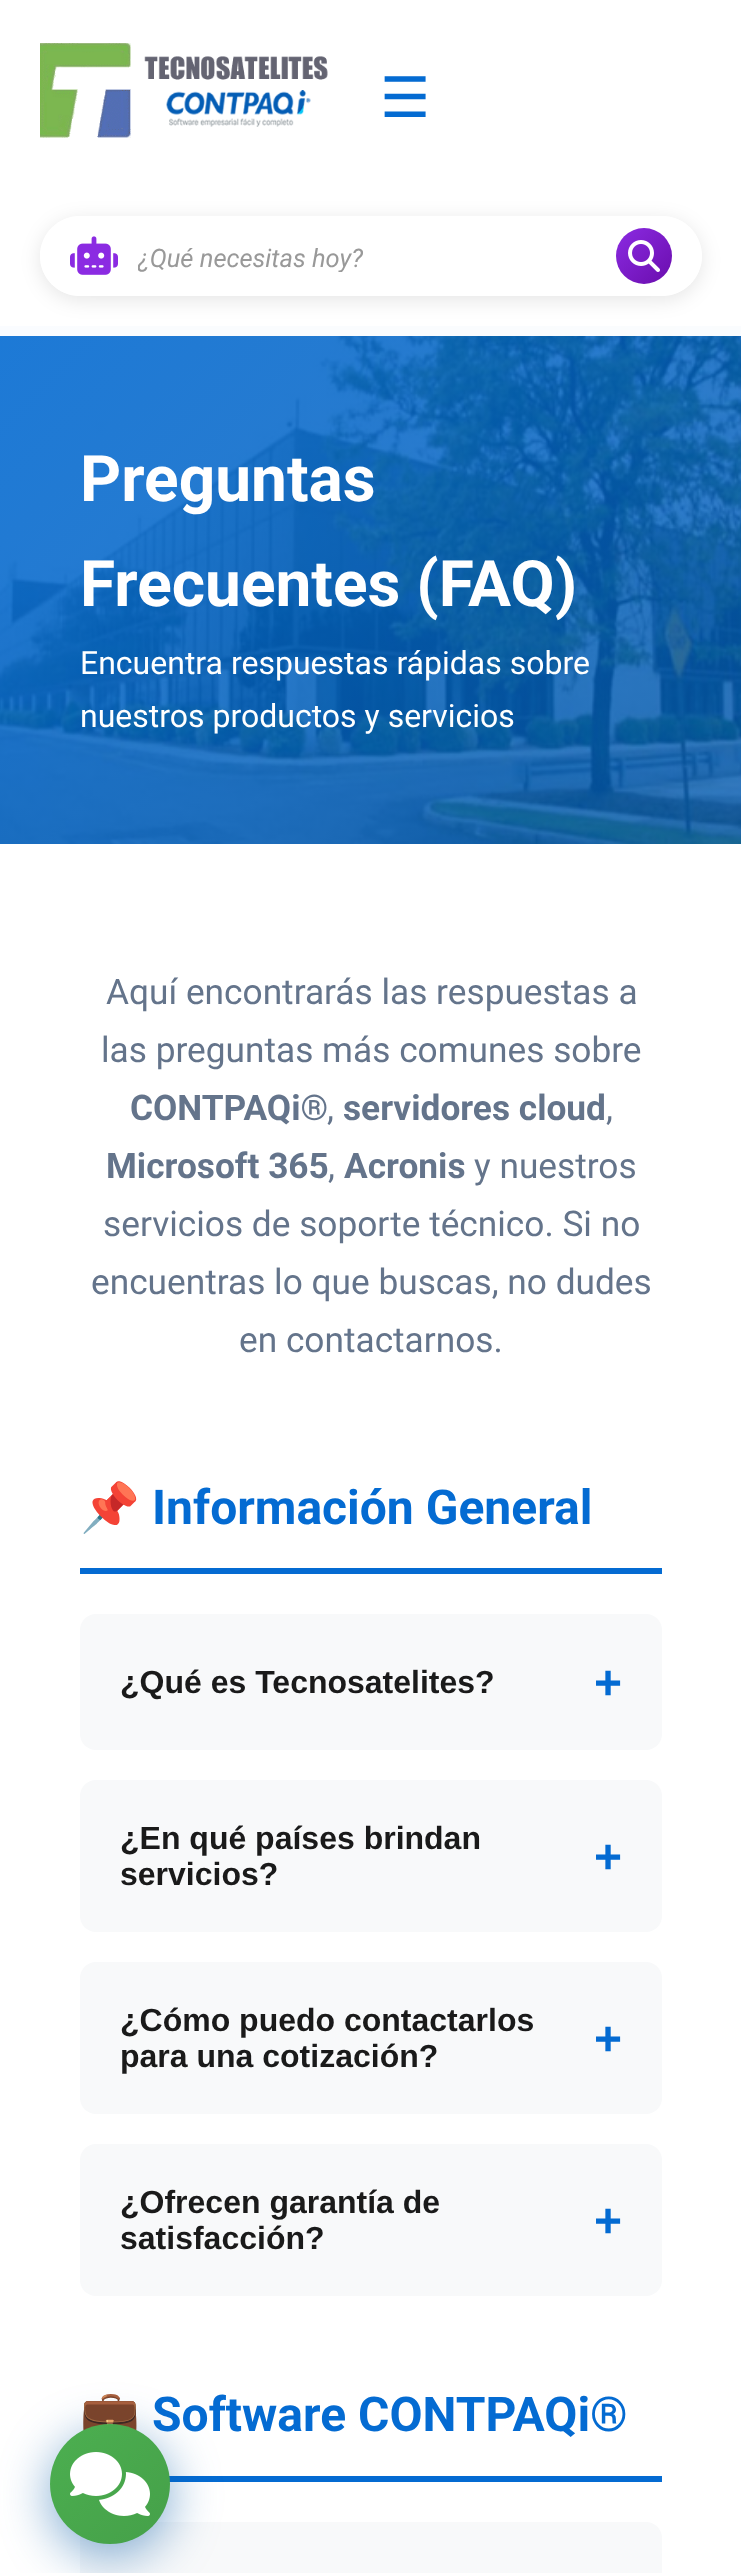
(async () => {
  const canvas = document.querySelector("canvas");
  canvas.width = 741;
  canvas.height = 2573;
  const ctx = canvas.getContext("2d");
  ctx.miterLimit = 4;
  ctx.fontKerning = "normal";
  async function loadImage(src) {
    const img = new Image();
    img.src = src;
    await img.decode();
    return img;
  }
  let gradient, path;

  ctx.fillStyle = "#ffffff";
  ctx.fillRect(0, 0, 741, 2573);
  ctx.drawImage(await loadImage("img/4.png"), 0, 326, 741, 518);
  ctx.fillStyle = "rgba(255, 255, 255, 0.98)";
  ctx.fillRect(0, 326, 741, 10);
  ctx.drawImage(await loadImage("img/1.png"), 40, 43, 288, 95);
  ctx.save();
  path = new Path2D("M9 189H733V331H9ZM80 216H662C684 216 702 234 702 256C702 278 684 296 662 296H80C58 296 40 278 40 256C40 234 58 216 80 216Z");
  ctx.clip(path, "evenodd");
  ctx.fillStyle = "rgba(0, 0, 0, 0.1)";
  ctx.filter = "blur(10px)";
  ctx.beginPath();
  ctx.roundRect(40, 220, 662, 80, 40);
  ctx.fill();
  ctx.filter = "none";
  ctx.restore();
  ctx.fillStyle = "rgba(255, 255, 255, 0.95)";
  ctx.beginPath();
  ctx.roundRect(40, 216, 662, 80, 40);
  ctx.fill();
  ctx.drawImage(await loadImage("img/2.png"), 70, 236, 48, 39);
  gradient = ctx.createLinearGradient(616, 228, 672, 284);
  gradient.addColorStop(0, "#8b2be2");
  gradient.addColorStop(1, "#6a0dad");
  ctx.fillStyle = gradient;
  ctx.beginPath();
  ctx.arc(644, 256, 28, 0, Math.PI * 2);
  ctx.fill();
  ctx.drawImage(await loadImage("img/3.png"), 628, 240, 32, 32);
  ctx.fillStyle = "#046bd2";
  ctx.fillRect(80, 1568, 582, 6);
  ctx.fillStyle = "#f8f9fa";
  ctx.beginPath();
  ctx.roundRect(80, 1614, 582, 136, 16);
  ctx.fill();
  ctx.beginPath();
  ctx.roundRect(80, 1780, 582, 152, 16);
  ctx.fill();
  ctx.beginPath();
  ctx.roundRect(80, 1962, 582, 152, 16);
  ctx.fill();
  ctx.beginPath();
  ctx.roundRect(80, 2144, 582, 152, 16);
  ctx.fill();
  ctx.fillStyle = "#046bd2";
  ctx.fillRect(169, 2476, 493, 6);
  ctx.fillStyle = "#f8f9fa";
  ctx.beginPath();
  ctx.roundRect(80, 2522, 582, 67, 16);
  ctx.fill();
  ctx.fillStyle = "rgba(0, 85, 164, 0.5)";
  ctx.filter = "blur(25px)";
  ctx.beginPath();
  ctx.roundRect(50, 2436, 120, 120, 60);
  ctx.fill();
  ctx.filter = "none";
  ctx.font = "56px DejaVu Sans";
  ctx.fillStyle = "#046bd2";
  ctx.fillText("☰", 380, 117);
  ctx.save();
  ctx.beginPath();
  ctx.rect(138, 242, 462, 30);
  ctx.clip();
  ctx.font = "italic 25.5px Roboto";
  ctx.fillStyle = "#999999";
  ctx.fillText("¿Qué necesitas hoy?", 138, 267);
  ctx.restore();
  ctx.font = "bold 64px Roboto";
  ctx.fillStyle = "#ffffff";
  ctx.fillText("Preguntas", 80, 501);
  ctx.fillText("Frecuentes (FAQ)", 80, 606);
  ctx.font = "32px Roboto";
  ctx.fillText("Encuentra respuestas rápidas sobre", 80, 674);
  ctx.fillText("nuestros productos y servicios", 80, 727);
  ctx.font = "35.25px Roboto";
  ctx.fillStyle = "#64748b";
  ctx.fillText("Aquí encontrarás las respuestas a", 106, 1004);
  ctx.fillText("las preguntas más comunes sobre", 101, 1062);
  ctx.font = "bold 35.25px Roboto";
  ctx.fillText("CONTPAQi®", 130, 1120);
  ctx.font = "35.25px Roboto";
  ctx.fillText(",", 327, 1120);
  ctx.font = "bold 35.25px Roboto";
  ctx.fillText("servidores cloud", 343, 1120);
  ctx.font = "35.25px Roboto";
  ctx.fillText(",", 606, 1120);
  ctx.font = "bold 35.25px Roboto";
  ctx.fillText("Microsoft 365", 106, 1178);
  ctx.font = "35.25px Roboto";
  ctx.fillText(",", 328, 1178);
  ctx.font = "bold 35.25px Roboto";
  ctx.fillText("Acronis", 344, 1178);
  ctx.font = "35.25px Roboto";
  for (const [text, x, y] of [
    ["y nuestros", 474, 1178],
    ["servicios de soporte técnico. Si no", 103, 1236],
    ["encuentras lo que buscas, no dudes", 91, 1294],
    ["en contactarnos.", 239, 1352],
  ]) {
    ctx.fillText(text, x, y);
  }
  ctx.font = "bold 48px Noto Color Emoji";
  ctx.fillStyle = "#046bd2";
  ctx.fillText("📌", 80, 1524);
  ctx.font = "bold 48px Roboto";
  ctx.fillText("Información General", 152, 1524);
  ctx.font = "bold 32px Liberation Sans";
  ctx.fillStyle = "#1a1a1a";
  ctx.fillText("¿Qué es Tecnosatelites?", 120, 1693);
  ctx.font = "bold 48px Liberation Sans";
  ctx.fillStyle = "#046bd2";
  ctx.fillText("+", 594, 1699);
  ctx.font = "bold 32px Liberation Sans";
  ctx.fillStyle = "#1a1a1a";
  ctx.fillText("¿En qué países brindan", 120, 1849);
  ctx.font = "bold 48px Liberation Sans";
  ctx.fillStyle = "#046bd2";
  ctx.fillText("+", 594, 1873);
  ctx.font = "bold 32px Liberation Sans";
  ctx.fillStyle = "#1a1a1a";
  ctx.fillText("servicios?", 120, 1885);
  ctx.fillText("¿Cómo puedo contactarlos", 120, 2031);
  ctx.font = "bold 48px Liberation Sans";
  ctx.fillStyle = "#046bd2";
  ctx.fillText("+", 594, 2055);
  ctx.font = "bold 32px Liberation Sans";
  ctx.fillStyle = "#1a1a1a";
  ctx.fillText("para una cotización?", 120, 2067);
  ctx.fillText("¿Ofrecen garantía de", 120, 2213);
  ctx.font = "bold 48px Liberation Sans";
  ctx.fillStyle = "#046bd2";
  ctx.fillText("+", 594, 2237);
  ctx.font = "bold 32px Liberation Sans";
  ctx.fillStyle = "#1a1a1a";
  ctx.fillText("satisfacción?", 120, 2249);
  ctx.font = "bold 48px Noto Color Emoji";
  ctx.fillStyle = "#046bd2";
  ctx.fillText("💼", 80, 2431);
  ctx.font = "bold 48px Roboto";
  ctx.fillText("Software CONTPAQi®", 152, 2431);
  gradient = ctx.createLinearGradient(50, 2424, 170, 2544);
  gradient.addColorStop(0, "#4caf50");
  gradient.addColorStop(1, "#45a049");
  ctx.fillStyle = gradient;
  ctx.beginPath();
  ctx.arc(110, 2484, 60, 0, Math.PI * 2);
  ctx.fill();
  ctx.drawImage(await loadImage("img/5.png"), 70, 2452, 80, 64);
})();
